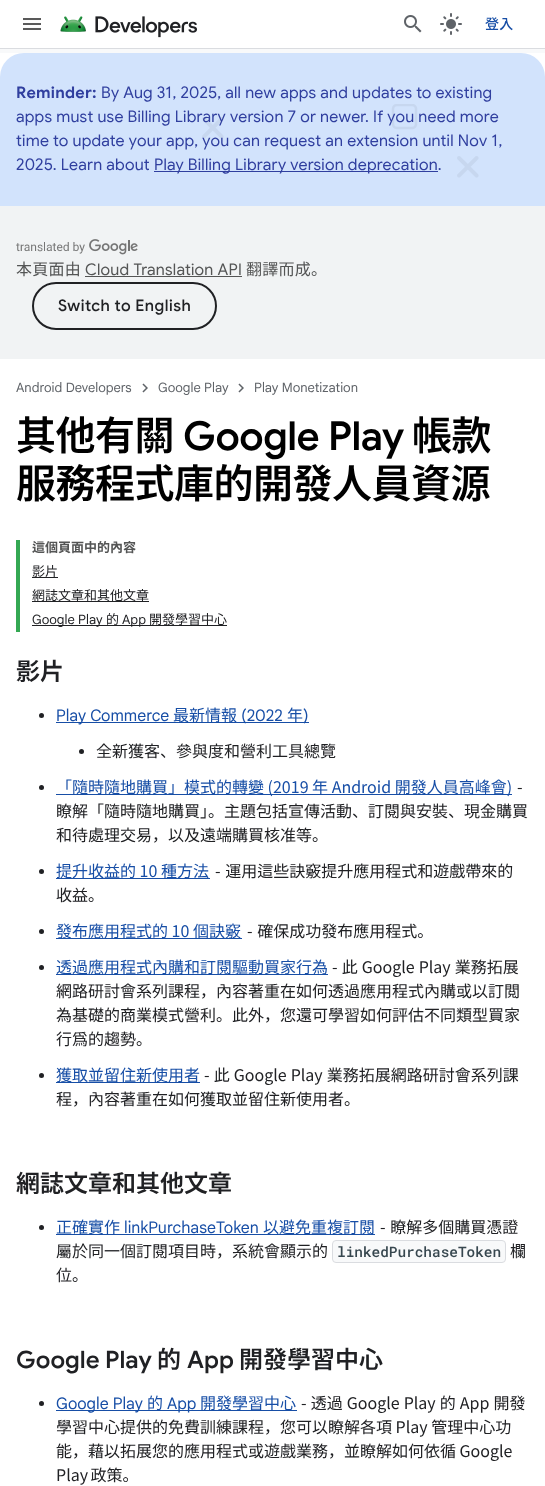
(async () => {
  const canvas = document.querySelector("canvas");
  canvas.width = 545;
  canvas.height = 1486;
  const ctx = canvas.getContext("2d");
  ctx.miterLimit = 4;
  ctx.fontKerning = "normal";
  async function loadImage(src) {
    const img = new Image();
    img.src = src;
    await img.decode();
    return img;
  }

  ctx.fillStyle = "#ffffff";
  ctx.fillRect(0, 0, 545, 1486);
  ctx.fillStyle = "#dadce0";
  ctx.fillRect(0, 48, 545, 1);
  ctx.drawImage(await loadImage("img/1.png"), 23, 18, 18, 12);
  ctx.drawImage(await loadImage("img/2.png"), 60, 16, 137, 22);
  ctx.drawImage(await loadImage("img/3.png"), 404, 15, 18, 18);
  ctx.drawImage(await loadImage("img/4.png"), 440, 13, 22, 22);
  ctx.fillStyle = "#f8f9fa";
  ctx.fillRect(0, 49, 545, 4);
  ctx.fillStyle = "#d2e3fc";
  ctx.beginPath();
  ctx.roundRect(0, 53, 545, 153, [24, 24, 0, 0]);
  ctx.fill();
  ctx.drawImage(await loadImage("img/5.png"), 202, 104, 277, 74);
  for (const [x, y, w, h, color] of [
    [303, 155, 8, 8, "#d2e3fc"],
    [154, 171, 284, 1, "#303f9f"],
    [0, 206, 545, 153, "#f1f3f4"],
  ]) {
    ctx.fillStyle = color;
    ctx.fillRect(x, y, w, h);
  }
  ctx.drawImage(await loadImage("img/6.png"), 16, 239, 122, 16);
  ctx.fillStyle = "#545555";
  ctx.fillRect(85, 276, 157, 1);
  ctx.beginPath();
  ctx.roundRect(33, 283, 183, 46, 23);
  ctx.strokeStyle = "#202124";
  ctx.lineWidth = 2;
  ctx.stroke();
  ctx.drawImage(await loadImage("img/7.png"), 142, 383, 6, 10);
  ctx.drawImage(await loadImage("img/7.png"), 238, 383, 6, 10);
  for (const [x, y, w, h, color] of [
    [16, 540, 4, 92, "#34a853"],
    [32, 577, 26, 1, "#202124"],
    [32, 601, 117, 1, "#202124"],
    [32, 625, 195, 1, "#202124"],
  ]) {
    ctx.fillStyle = color;
    ctx.fillRect(x, y, w, h);
  }
  ctx.beginPath();
  ctx.arc(41.5, 715.5, 2.5, 0, Math.PI * 2);
  ctx.fill();
  ctx.fillStyle = "#174ea6";
  ctx.fillRect(56, 722, 253, 1);
  ctx.fillStyle = "#202124";
  ctx.beginPath();
  ctx.arc(81.5, 751.5, 2.5, 0, Math.PI * 2);
  ctx.fill();
  ctx.beginPath();
  ctx.arc(41.5, 787.5, 2.5, 0, Math.PI * 2);
  ctx.fill();
  ctx.fillStyle = "#174ea6";
  ctx.fillRect(56, 794, 456, 1);
  ctx.fillStyle = "#202124";
  ctx.beginPath();
  ctx.arc(41.5, 871.5, 2.5, 0, Math.PI * 2);
  ctx.fill();
  ctx.fillStyle = "#174ea6";
  ctx.fillRect(56, 878, 154, 1);
  ctx.fillStyle = "#202124";
  ctx.beginPath();
  ctx.arc(41.5, 931.5, 2.5, 0, Math.PI * 2);
  ctx.fill();
  ctx.fillStyle = "#174ea6";
  ctx.fillRect(56, 938, 186, 1);
  ctx.fillStyle = "#202124";
  ctx.beginPath();
  ctx.arc(41.5, 967.5, 2.5, 0, Math.PI * 2);
  ctx.fill();
  ctx.fillStyle = "#174ea6";
  ctx.fillRect(56, 974, 272, 1);
  ctx.fillStyle = "#202124";
  ctx.beginPath();
  ctx.arc(41.5, 1075.5, 2.5, 0, Math.PI * 2);
  ctx.fill();
  ctx.fillStyle = "#174ea6";
  ctx.fillRect(56, 1082, 144, 1);
  ctx.fillStyle = "#202124";
  ctx.beginPath();
  ctx.arc(41.5, 1227.5, 2.5, 0, Math.PI * 2);
  ctx.fill();
  ctx.fillStyle = "#174ea6";
  ctx.fillRect(56, 1234, 319, 1);
  ctx.fillStyle = "#f8f9fa";
  ctx.beginPath();
  ctx.roundRect(332.5, 1240.5, 173, 22, 3.5);
  ctx.fill();
  ctx.strokeStyle = "#dadce0";
  ctx.lineWidth = 1;
  ctx.stroke();
  ctx.fillStyle = "#202124";
  ctx.beginPath();
  ctx.arc(41.5, 1403.5, 2.5, 0, Math.PI * 2);
  ctx.fill();
  ctx.fillStyle = "#174ea6";
  ctx.fillRect(56, 1410, 241, 1);
  ctx.letterSpacing = "0.25px";
  ctx.font = "500 14px Noto Sans JP";
  ctx.fillText("登入", 485, 29);
  ctx.font = "bold 16px Google Sans";
  ctx.fillStyle = "#303f9f";
  ctx.fillText("Reminder:", 16, 98);
  ctx.font = "16px Google Sans";
  for (const [text, x, y] of [
    ["By Aug 31, 2025, all new apps and updates to existing", 101, 98],
    ["apps must use Billing Library version 7 or newer. If you need more", 16, 122],
    ["time to update your app, you can request an extension until Nov 1,", 16, 146],
    ["2025. Learn about", 16, 170],
    ["Play Billing Library version deprecation.", 154, 170],
  ]) {
    ctx.fillText(text, x, y);
  }
  ctx.font = "16px Noto Sans JP";
  ctx.fillStyle = "#545555";
  ctx.fillText("本頁面由", 16, 275);
  ctx.font = "16px Google Sans";
  ctx.fillText("Cloud Translation API", 85, 275);
  ctx.font = "16px Noto Sans JP";
  ctx.fillText("翻譯而成。", 246, 275);
  ctx.letterSpacing = "0.5px";
  ctx.font = "500 16px Google Sans";
  ctx.fillStyle = "#202124";
  ctx.fillText("Switch to English", 58, 311);
  ctx.letterSpacing = "0px";
  ctx.font = "13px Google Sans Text";
  ctx.fillStyle = "#5f6368";
  for (const [text, x, y] of [
    ["Android Developers", 16, 392],
    ["Google Play", 158, 392],
    ["Play Monetization", 254, 392],
  ]) {
    ctx.fillText(text, x, y);
  }
  ctx.letterSpacing = "-0.5px";
  ctx.font = "600 40px Noto Sans JP";
  ctx.fillStyle = "#000000";
  ctx.fillText("其他有關", 16, 450);
  ctx.font = "600 40px Google Sans";
  ctx.fillText("Google Play", 183, 450);
  ctx.font = "600 40px Noto Sans JP";
  ctx.fillText("帳款", 412, 450);
  ctx.fillText("服務程式庫的開發人員資源", 16, 498);
  ctx.letterSpacing = "0px";
  ctx.font = "bold 13px Noto Sans JP";
  ctx.fillStyle = "#545555";
  ctx.fillText("這個頁面中的內容", 32, 552);
  ctx.font = "13px Noto Sans JP";
  ctx.fillStyle = "#202124";
  ctx.fillText("影片", 32, 576);
  ctx.fillText("網誌文章和其他文章", 32, 600);
  ctx.font = "13px Google Sans Text";
  ctx.fillText("Google Play", 32, 624);
  ctx.font = "13px Noto Sans JP";
  ctx.fillText("的", 106, 624);
  ctx.font = "13px Google Sans Text";
  ctx.fillText("App", 122, 624);
  ctx.font = "13px Noto Sans JP";
  ctx.fillText("開發學習中心", 149, 624);
  ctx.font = "600 24px Noto Sans JP";
  ctx.fillText("影片", 16, 680);
  ctx.font = "16px Google Sans Text";
  ctx.fillStyle = "#174ea6";
  ctx.fillText("Play Commerce", 56, 721);
  ctx.font = "16px Noto Sans JP";
  ctx.fillText("最新情報", 173, 721);
  ctx.font = "16px Google Sans Text";
  ctx.fillText("(2022", 241, 721);
  ctx.font = "16px Noto Sans JP";
  ctx.fillText("年", 287, 721);
  ctx.font = "16px Google Sans Text";
  ctx.fillText(")", 303, 721);
  ctx.font = "16px Noto Sans JP";
  ctx.fillStyle = "#202124";
  ctx.fillText("全新獲客、參與度和營利工具總覽", 96, 757);
  ctx.fillStyle = "#174ea6";
  ctx.fillText("「隨時隨地購買」模式的轉變 (2019 年 Android 開發人員高峰會)", 56, 793);
  ctx.fillStyle = "#202124";
  for (const [text, x, y] of [
    ["-", 517, 793],
    ["瞭解「隨時隨地購買」。主題包括宣傳活動、訂閱與安裝、現金購買", 56, 817],
    ["和待處理交易，以及遠端購買核准等。", 56, 841],
  ]) {
    ctx.fillText(text, x, y);
  }
  ctx.fillStyle = "#174ea6";
  ctx.fillText("提升收益的 10 種方法", 56, 877);
  ctx.wordSpacing = "1px";
  ctx.fillStyle = "#202124";
  ctx.fillText("- 運用這些訣竅提升應用程式和遊戲帶來的", 215, 877);
  ctx.wordSpacing = "0px";
  ctx.fillText("收益。", 56, 901);
  ctx.fillStyle = "#174ea6";
  ctx.fillText("發布應用程式的 10 個訣竅", 56, 937);
  ctx.wordSpacing = "1px";
  ctx.fillStyle = "#202124";
  ctx.fillText("- 確保成功發布應用程式。", 247, 937);
  ctx.wordSpacing = "0px";
  ctx.fillStyle = "#174ea6";
  ctx.fillText("透過應用程式內購和訂閱驅動買家行為", 56, 973);
  ctx.wordSpacing = "0.5px";
  ctx.fillStyle = "#202124";
  ctx.fillText("- 此 Google Play 業務拓展", 332, 973);
  ctx.wordSpacing = "0px";
  for (const [text, x, y] of [
    ["網路研討會系列課程，內容著重在如何透過應用程式內購或以訂閲", 56, 997],
    ["為基礎的商業模式營利。此外，您還可學習如何評估不同類型買家", 56, 1021],
    ["行爲的趨勢。", 56, 1045],
  ]) {
    ctx.fillText(text, x, y);
  }
  ctx.fillStyle = "#174ea6";
  ctx.fillText("獲取並留住新使用者", 56, 1081);
  ctx.wordSpacing = "0.5px";
  ctx.fillStyle = "#202124";
  ctx.fillText("- 此 Google Play 業務拓展網路研討會系列課", 204, 1081);
  ctx.wordSpacing = "0px";
  ctx.fillText("程，內容著重在如何獲取並留住新使用者。", 56, 1105);
  ctx.font = "600 24px Noto Sans JP";
  ctx.fillText("網誌文章和其他文章", 16, 1192);
  ctx.font = "16px Noto Sans JP";
  ctx.fillStyle = "#174ea6";
  ctx.fillText("正確實作", 56, 1233);
  ctx.font = "16px Google Sans Text";
  ctx.fillText("linkPurchaseToken", 124, 1233);
  ctx.font = "16px Noto Sans JP";
  ctx.fillText("以避免重複訂閱", 263, 1233);
  ctx.wordSpacing = "1px";
  ctx.fillStyle = "#202124";
  ctx.fillText("- 瞭解多個購買憑證", 380, 1233);
  ctx.wordSpacing = "0px";
  ctx.fillText("屬於同一個訂閱項目時，系統會顯示的", 56, 1257);
  ctx.font = "500 14.4px Roboto Mono";
  ctx.fillStyle = "#37474f";
  ctx.fillText("linkedPurchaseToken", 337, 1257);
  ctx.font = "16px Noto Sans JP";
  ctx.fillStyle = "#202124";
  ctx.fillText("欄", 510, 1257);
  ctx.fillText("位。", 56, 1281);
  ctx.font = "600 24px Google Sans";
  ctx.fillText("Google Play", 16, 1368);
  ctx.font = "600 24px Noto Sans JP";
  ctx.fillText("的", 157, 1368);
  ctx.font = "600 24px Google Sans";
  ctx.fillText("App", 187, 1368);
  ctx.font = "600 24px Noto Sans JP";
  ctx.fillText("開發學習中心", 239, 1368);
  ctx.font = "16px Google Sans Text";
  ctx.fillStyle = "#174ea6";
  ctx.fillText("Google Play", 56, 1409);
  ctx.font = "16px Noto Sans JP";
  ctx.fillText("的", 147, 1409);
  ctx.font = "16px Google Sans Text";
  ctx.fillText("App", 167, 1409);
  ctx.font = "16px Noto Sans JP";
  ctx.fillText("開發學習中心", 200, 1409);
  ctx.wordSpacing = "0.5px";
  ctx.fillStyle = "#202124";
  ctx.fillText("- 透過 Google Play 的 App 開發", 301, 1409);
  ctx.wordSpacing = "0px";
  ctx.fillText("學習中心提供的免費訓練課程，您可以瞭解各項 Play 管理中心功", 56, 1433);
  ctx.fillText("能，藉以拓展您的應用程式或遊戲業務，並瞭解如何依循 Google", 56, 1457);
  ctx.wordSpacing = "-1px";
  ctx.fillText("Play 政策。", 56, 1481);
})();
